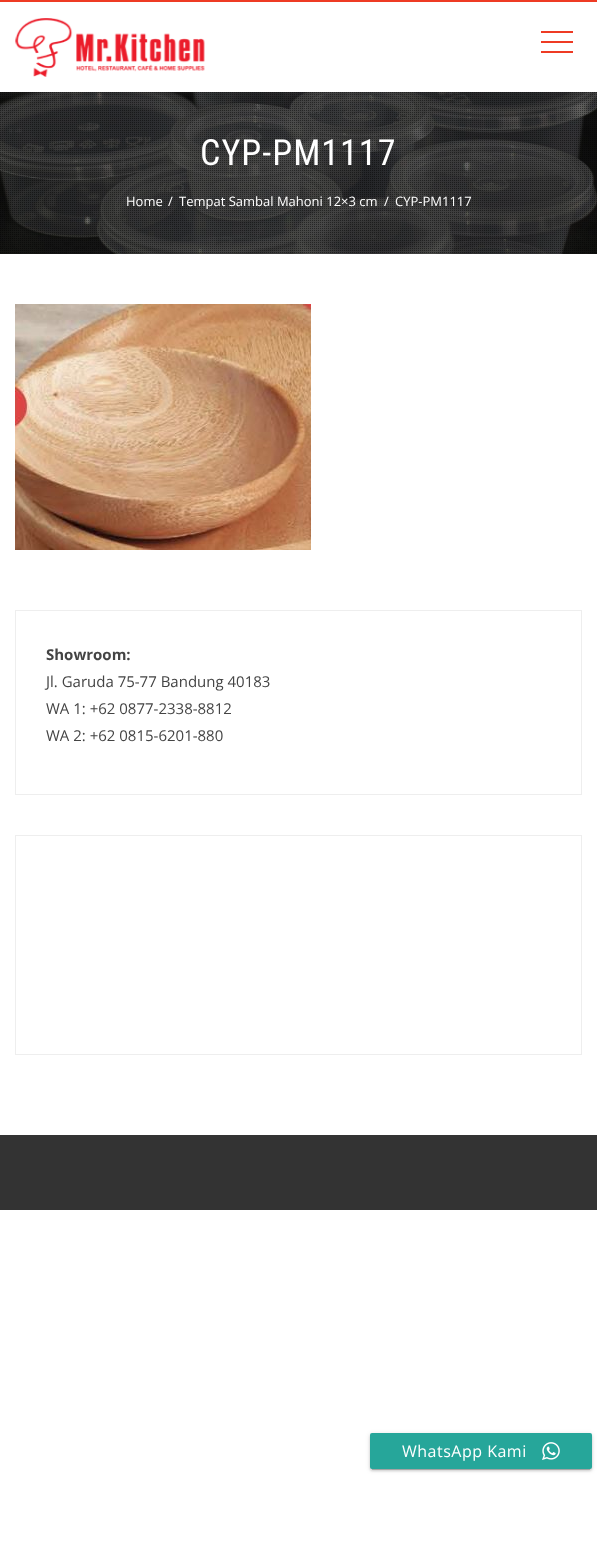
(async () => {
  const canvas = document.querySelector("canvas");
  canvas.width = 597;
  canvas.height = 1559;
  const ctx = canvas.getContext("2d");
  ctx.miterLimit = 4;
  ctx.fontKerning = "normal";
  async function loadImage(src) {
    const img = new Image();
    img.src = src;
    await img.decode();
    return img;
  }

  ctx.fillStyle = "#ffffff";
  ctx.fillRect(0, 0, 597, 1559);
  ctx.fillStyle = "#ee3b24";
  ctx.fillRect(0, 0, 597, 2);
  ctx.drawImage(await loadImage("img/1.png"), 15, 18, 190, 59);
  for (const [x, y, w, h, color] of [
    [541, 31, 32, 2, "#ee3b24"],
    [541, 51, 32, 2, "#ee3b24"],
    [541, 41, 32, 2, "#ee3b24"],
  ]) {
    ctx.fillStyle = color;
    ctx.fillRect(x, y, w, h);
  }
  ctx.drawImage(await loadImage("img/2.png"), 0, 92, 597, 162);
  ctx.drawImage(await loadImage("img/3.png"), 0, 92, 597, 162);
  ctx.drawImage(await loadImage("img/4.png"), 15, 304, 296, 246);
  ctx.strokeStyle = "#eeeeee";
  ctx.strokeRect(15.5, 610.5, 566, 184);
  ctx.strokeRect(15.5, 835.5, 566, 219);
  ctx.fillStyle = "#333333";
  ctx.fillRect(0, 1135, 597, 75);
  ctx.fillStyle = "rgba(0, 0, 0, 0.2)";
  ctx.filter = "blur(0.5px)";
  ctx.beginPath();
  ctx.rect(372, 1438, 218, 32);
  ctx.fill();
  ctx.filter = "none";
  ctx.fillStyle = "rgba(0, 0, 0, 0.12)";
  ctx.filter = "blur(2.5px)";
  ctx.beginPath();
  ctx.roundRect(370, 1434, 222, 36, 2);
  ctx.fill();
  ctx.filter = "none";
  ctx.fillStyle = "rgba(0, 0, 0, 0.14)";
  ctx.filter = "blur(1px)";
  ctx.beginPath();
  ctx.roundRect(370, 1435, 222, 36, 2);
  ctx.fill();
  ctx.filter = "none";
  ctx.fillStyle = "#26a69a";
  ctx.beginPath();
  ctx.roundRect(370, 1433, 222, 36, 2);
  ctx.fill();
  ctx.drawImage(await loadImage("img/5.png"), 542, 1442, 18, 18);
  ctx.letterSpacing = "1px";
  ctx.font = "36px Roboto Condensed";
  ctx.fillStyle = "#ffffff";
  ctx.fillText("CYP-PM1117", 200, 165);
  ctx.letterSpacing = "0px";
  ctx.font = "13px Open Sans";
  for (const [text, x, y] of [
    ["Home", 126, 206],
    ["/", 168, 206],
    ["Tempat Sambal Mahoni 12×3 cm", 179, 206],
    ["/", 384, 206],
    ["CYP-PM1117", 395, 206],
  ]) {
    ctx.fillText(text, x, y);
  }
  ctx.font = "bold 15px Open Sans";
  ctx.fillStyle = "#444444";
  ctx.fillText("Showroom:", 46, 660);
  ctx.font = "15px Open Sans";
  for (const [text, x, y] of [
    ["Jl. Garuda 75-77 Bandung 40183", 46, 687],
    ["WA 1: +62 0877-2338-8812", 46, 714],
    ["WA 2: +62 0815-6201-880", 46, 741],
  ]) {
    ctx.fillText(text, x, y);
  }
  ctx.letterSpacing = "0.5px";
  ctx.font = "16px Open Sans";
  ctx.fillStyle = "#ffffff";
  ctx.fillText("WhatsApp Kami", 402, 1457);
})();
